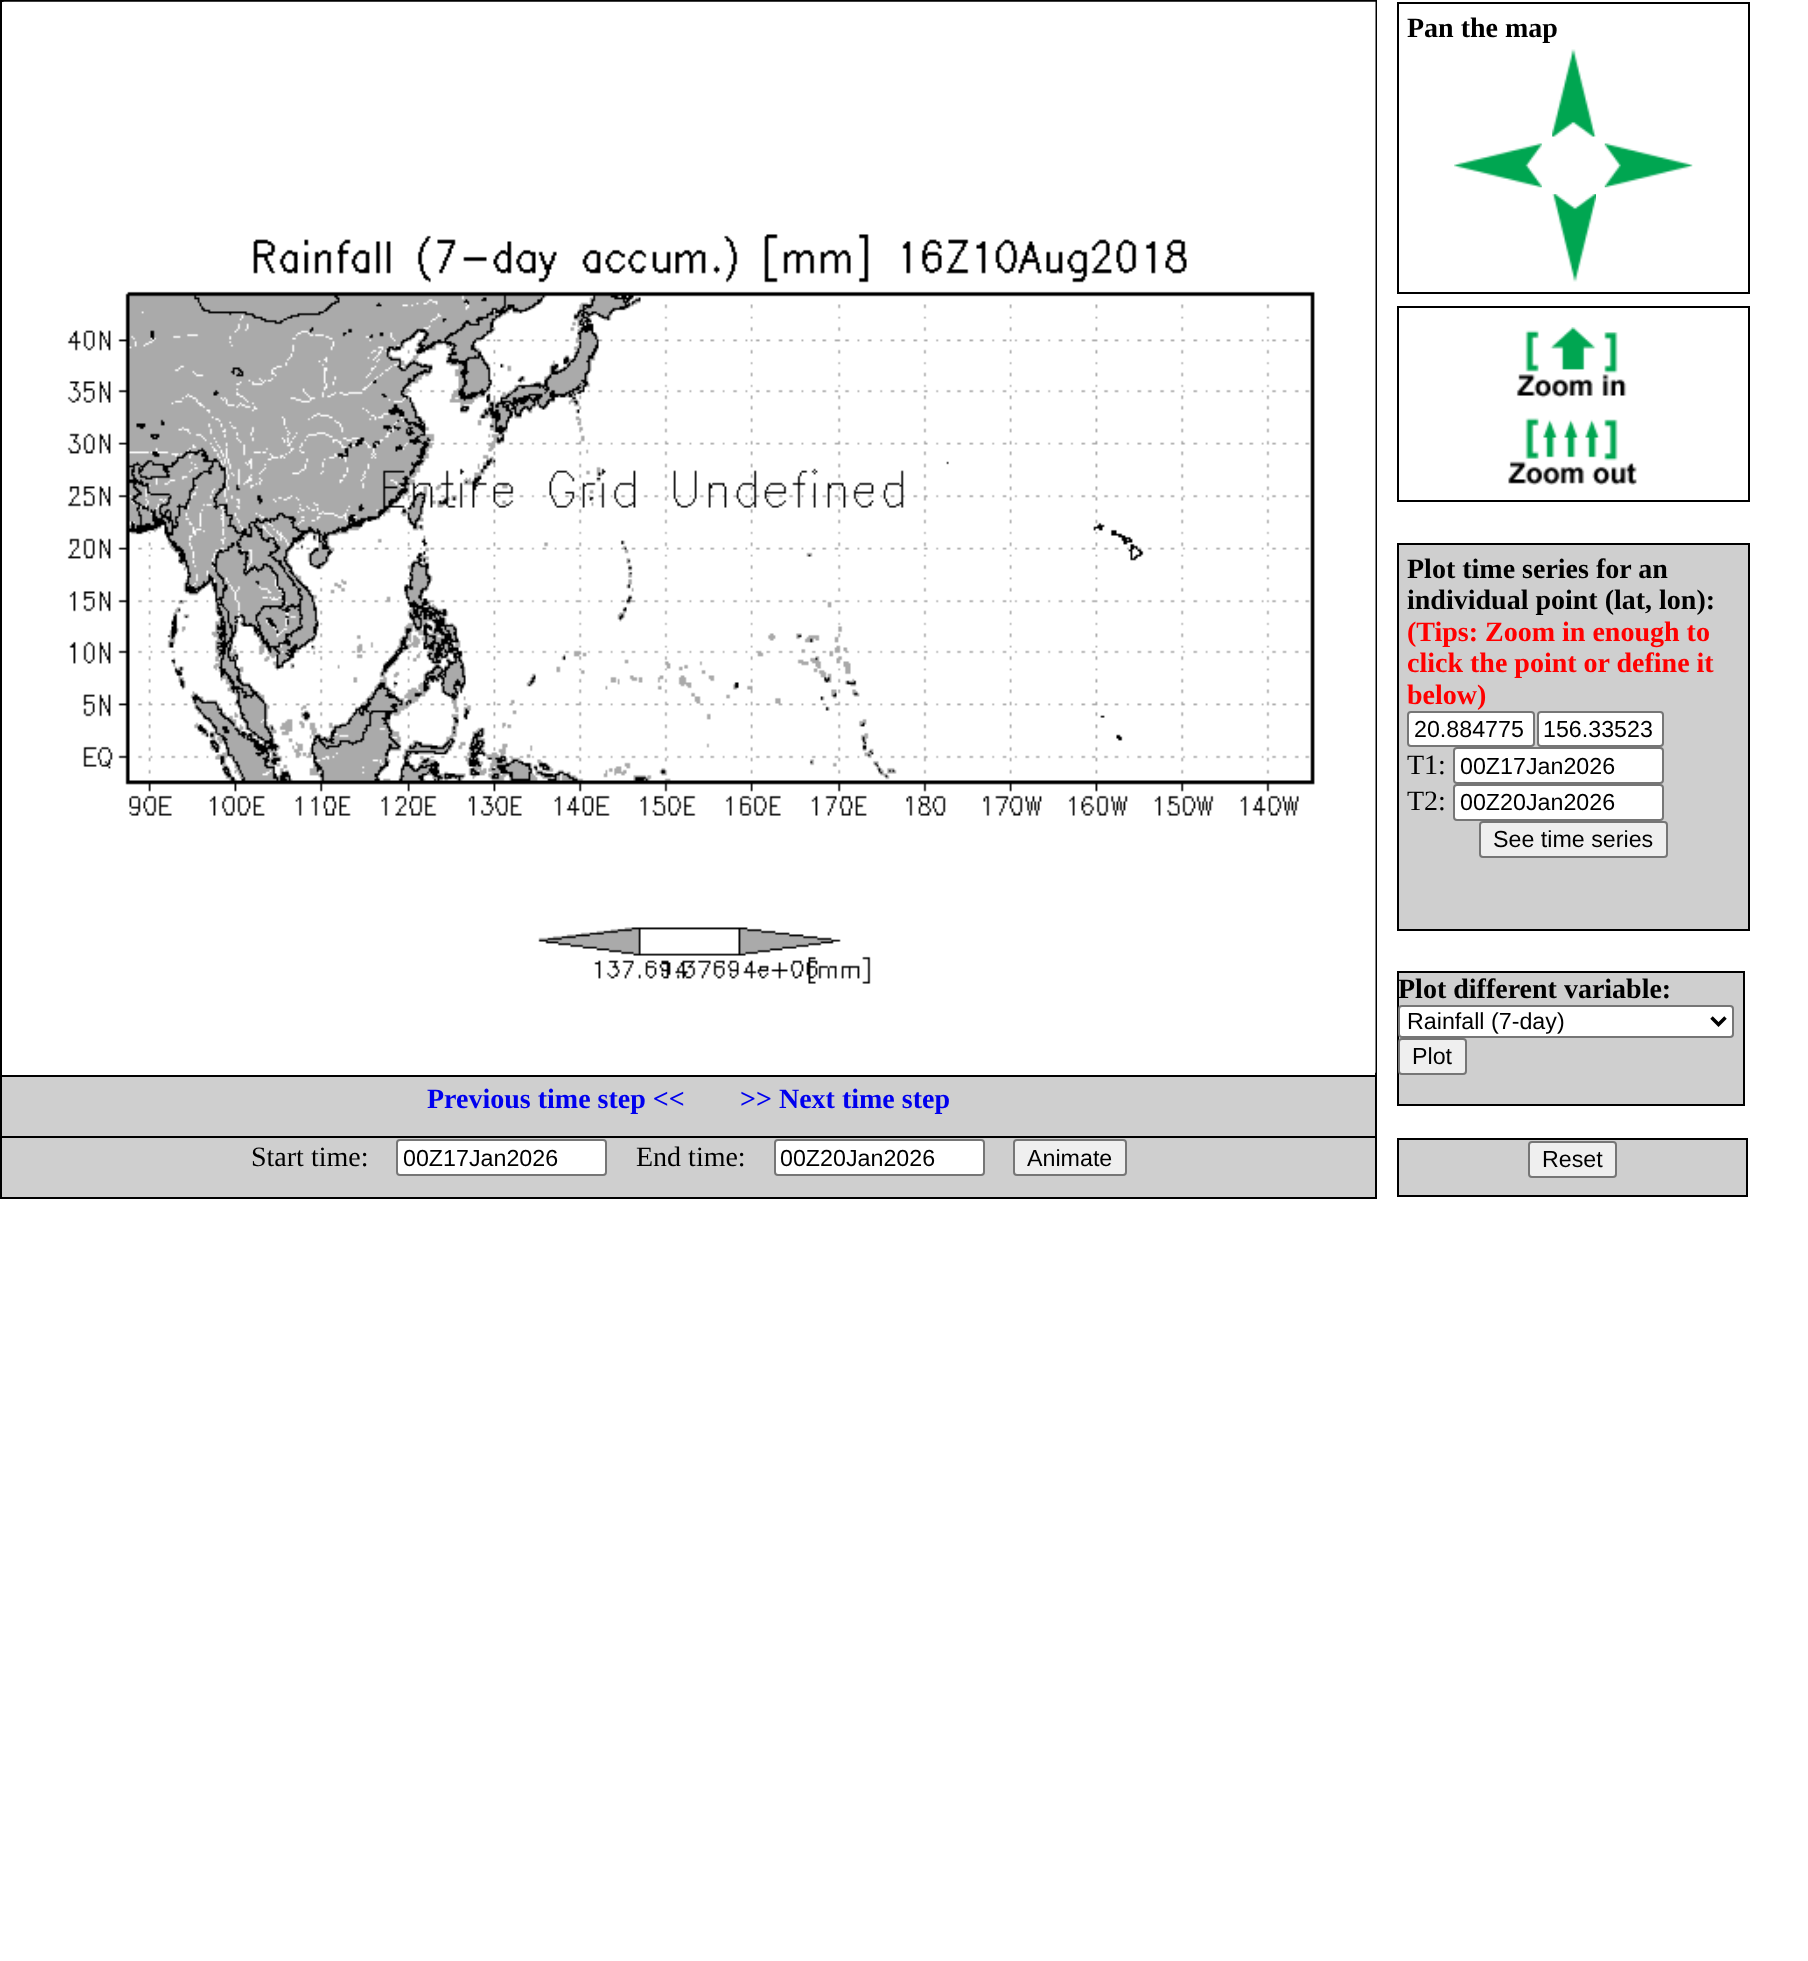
(async () => {
  const canvas = document.querySelector("canvas");
  canvas.width = 1808;
  canvas.height = 1961;
  const ctx = canvas.getContext("2d");
  ctx.miterLimit = 4;
  ctx.fontKerning = "normal";
  async function loadImage(src) {
    const img = new Image();
    img.src = src;
    await img.decode();
    return img;
  }
  let path;

  ctx.fillStyle = "#ffffff";
  ctx.fillRect(0, 0, 1808, 1961);
  ctx.strokeStyle = "#000000";
  ctx.lineWidth = 2;
  ctx.strokeRect(1, 1, 1375, 1197);
  ctx.drawImage(await loadImage("img/1.png"), 3, 1, 1373, 1072);
  ctx.strokeRect(1398, 3, 351, 290);
  ctx.drawImage(await loadImage("img/2.png"), 1552, 49, 44, 88);
  ctx.drawImage(await loadImage("img/3.png"), 1454, 143, 88, 45);
  ctx.drawImage(await loadImage("img/4.png"), 1604, 143, 89, 45);
  ctx.drawImage(await loadImage("img/5.png"), 1552, 194, 44, 88);
  ctx.strokeRect(1398, 307, 351, 194);
  ctx.drawImage(await loadImage("img/6.png"), 1516, 327, 111, 71);
  ctx.drawImage(await loadImage("img/7.png"), 1508, 417, 129, 68);
  ctx.fillStyle = "#cfcfcf";
  ctx.beginPath();
  ctx.rect(1398, 544, 351, 386);
  ctx.fill();
  ctx.stroke();
  ctx.fillStyle = "#ffffff";
  ctx.beginPath();
  ctx.roundRect(1408, 712, 126, 34, 3);
  ctx.fill();
  ctx.strokeStyle = "#767676";
  ctx.stroke();
  ctx.beginPath();
  ctx.roundRect(1538, 712, 125, 34, 3);
  ctx.fill();
  ctx.stroke();
  ctx.beginPath();
  ctx.roundRect(1454, 748, 209, 35, 3);
  ctx.fill();
  ctx.stroke();
  ctx.beginPath();
  ctx.roundRect(1454, 785, 209, 35, 3);
  ctx.fill();
  ctx.stroke();
  ctx.fillStyle = "#efefef";
  ctx.beginPath();
  ctx.roundRect(1480, 822, 187, 35, 3);
  ctx.fill();
  ctx.stroke();
  ctx.fillStyle = "#cfcfcf";
  ctx.beginPath();
  ctx.rect(1398, 972, 346, 133);
  ctx.fill();
  ctx.strokeStyle = "#000000";
  ctx.stroke();
  ctx.fillStyle = "#ffffff";
  ctx.beginPath();
  ctx.roundRect(1399, 1006, 334, 31, 3);
  ctx.fill();
  ctx.strokeStyle = "#767676";
  ctx.stroke();
  path = new Path2D("M1711.5 1017.5L1718.5 1024.5L1725.5 1017.5");
  ctx.strokeStyle = "#000000";
  ctx.lineWidth = 3.5;
  ctx.stroke(path);
  ctx.fillStyle = "#efefef";
  ctx.beginPath();
  ctx.roundRect(1399, 1039, 67, 35, 3);
  ctx.fill();
  ctx.strokeStyle = "#767676";
  ctx.lineWidth = 2;
  ctx.stroke();
  ctx.fillStyle = "#cfcfcf";
  ctx.beginPath();
  ctx.rect(1, 1076, 1375, 61);
  ctx.fill();
  ctx.strokeStyle = "#000000";
  ctx.stroke();
  ctx.fillRect(2, 1138, 1373, 59);
  ctx.fillStyle = "#ffffff";
  ctx.beginPath();
  ctx.roundRect(397, 1140, 209, 35, 3);
  ctx.fill();
  ctx.strokeStyle = "#767676";
  ctx.stroke();
  ctx.beginPath();
  ctx.roundRect(775, 1140, 209, 35, 3);
  ctx.fill();
  ctx.stroke();
  ctx.fillStyle = "#efefef";
  ctx.beginPath();
  ctx.roundRect(1014, 1140, 112, 35, 3);
  ctx.fill();
  ctx.stroke();
  ctx.fillStyle = "#cfcfcf";
  ctx.beginPath();
  ctx.rect(1398, 1139, 349, 57);
  ctx.fill();
  ctx.strokeStyle = "#000000";
  ctx.stroke();
  ctx.fillStyle = "#efefef";
  ctx.beginPath();
  ctx.roundRect(1529, 1142, 87, 35, 3);
  ctx.fill();
  ctx.strokeStyle = "#767676";
  ctx.stroke();
  ctx.font = "bold 28px Liberation Serif";
  ctx.fillStyle = "#000000";
  for (const [text, x, y] of [
    ["Pan the map", 1407, 37],
    ["Plot time series for an", 1407, 578],
    ["individual point (lat, lon):", 1407, 609],
  ]) {
    ctx.fillText(text, x, y);
  }
  ctx.fillStyle = "#ff0000";
  for (const [text, x, y] of [
    ["(Tips: Zoom in enough to", 1407, 641],
    ["click the point or define it", 1407, 672],
    ["below)", 1407, 704],
  ]) {
    ctx.fillText(text, x, y);
  }
  ctx.font = "23.25px Liberation Sans";
  ctx.fillStyle = "#000000";
  ctx.fillText("20.884775", 1414, 737);
  ctx.fillText("156.33523", 1543, 737);
  ctx.font = "28px Liberation Serif";
  ctx.fillText("T1:", 1407, 774);
  ctx.font = "23.25px Liberation Sans";
  ctx.fillText("00Z17Jan2026", 1460, 774);
  ctx.font = "28px Liberation Serif";
  ctx.fillText("T2:", 1407, 810);
  ctx.font = "23.25px Liberation Sans";
  ctx.fillText("00Z20Jan2026", 1460, 810);
  ctx.fillText("See time series", 1493, 847);
  ctx.font = "bold 28px Liberation Serif";
  ctx.fillText("Plot different variable:", 1398, 998);
  ctx.font = "23.25px Liberation Sans";
  ctx.fillText("Rainfall (7-day)", 1407, 1029);
  ctx.fillText("Plot", 1412, 1064);
  ctx.font = "bold 28px Liberation Serif";
  ctx.fillStyle = "#0000ee";
  ctx.fillText("Previous time step <<", 427, 1108);
  ctx.fillText(">> Next time step", 740, 1108);
  ctx.font = "28px Liberation Serif";
  ctx.fillStyle = "#000000";
  ctx.fillText("Start time:", 251, 1166);
  ctx.font = "23.25px Liberation Sans";
  ctx.fillText("00Z17Jan2026", 403, 1166);
  ctx.font = "28px Liberation Serif";
  ctx.fillText("End time:", 636, 1166);
  ctx.font = "23.25px Liberation Sans";
  for (const [text, x, y] of [
    ["00Z20Jan2026", 780, 1166],
    ["Animate", 1027, 1166],
    ["Reset", 1542, 1167],
  ]) {
    ctx.fillText(text, x, y);
  }
})();
